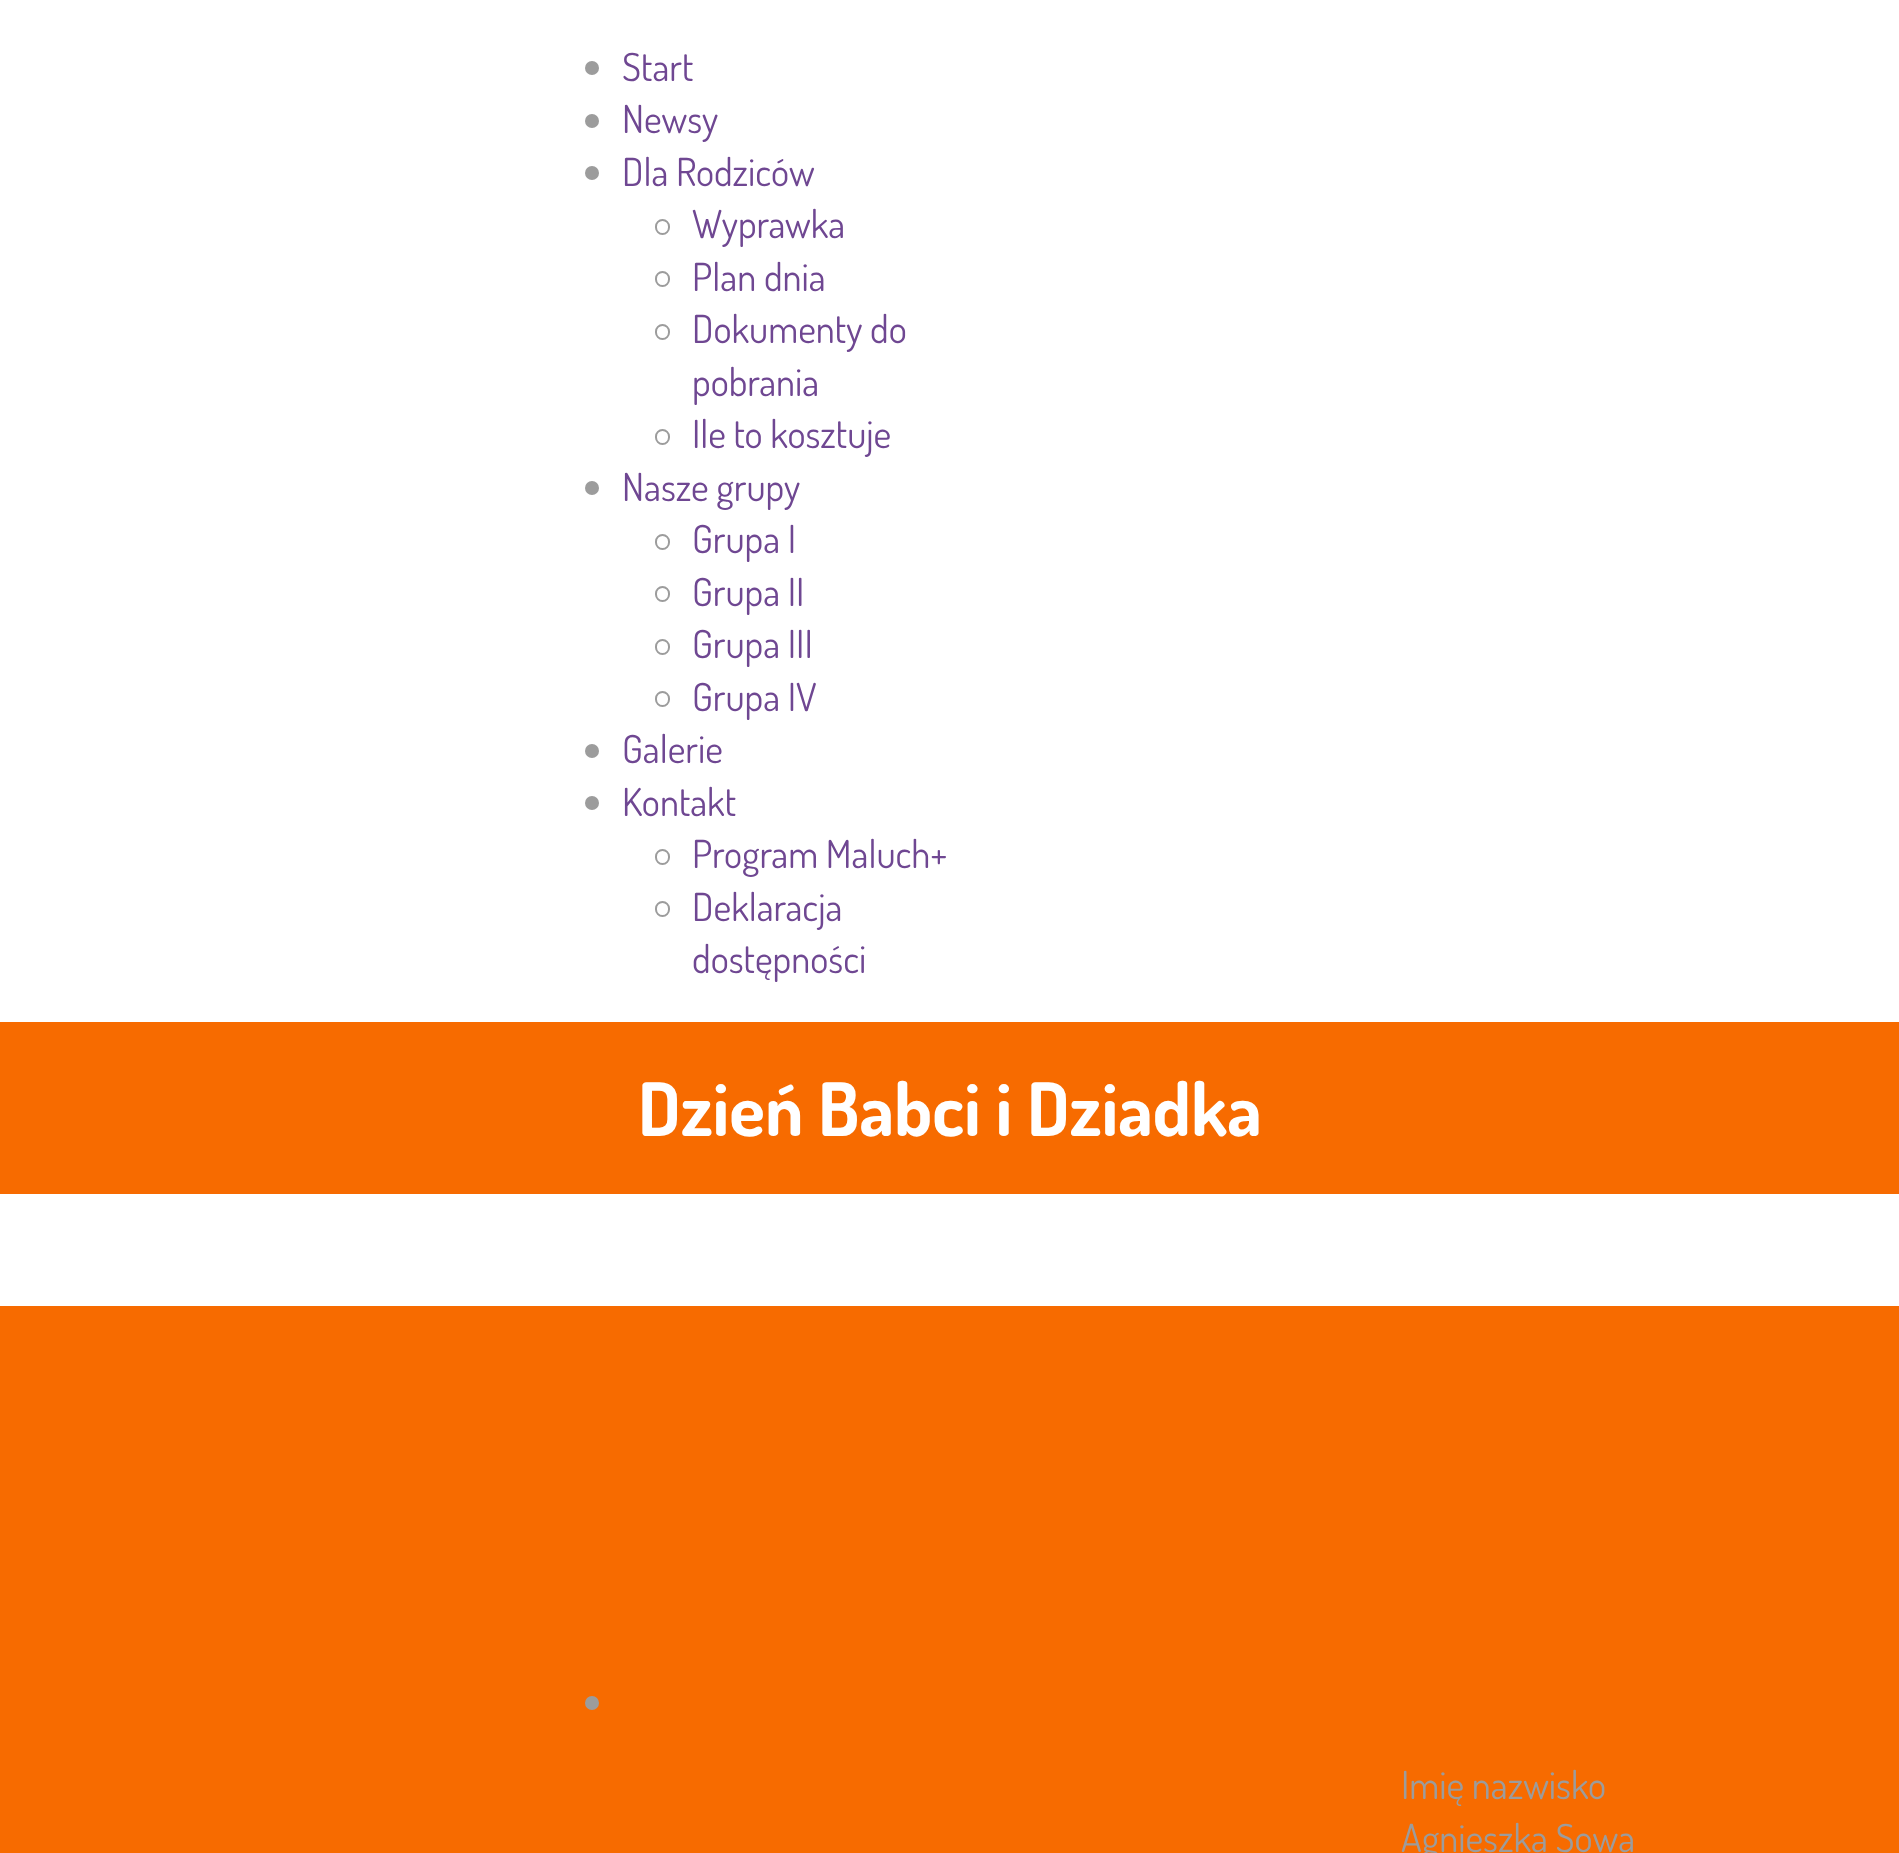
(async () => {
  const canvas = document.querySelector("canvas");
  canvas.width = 1899;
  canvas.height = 1853;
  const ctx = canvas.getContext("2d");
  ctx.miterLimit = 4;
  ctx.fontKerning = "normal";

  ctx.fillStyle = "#ffffff";
  ctx.fillRect(0, 0, 1899, 1853);
  ctx.fillStyle = "#9c9c9c";
  ctx.beginPath();
  ctx.arc(592, 68, 7, 0, Math.PI * 2);
  ctx.fill();
  ctx.beginPath();
  ctx.arc(592, 121, 7, 0, Math.PI * 2);
  ctx.fill();
  ctx.beginPath();
  ctx.arc(592, 173, 7, 0, Math.PI * 2);
  ctx.fill();
  ctx.beginPath();
  ctx.roundRect(656, 220, 13, 14, 6.5);
  ctx.strokeStyle = "#9c9c9c";
  ctx.lineWidth = 2;
  ctx.stroke();
  ctx.beginPath();
  ctx.roundRect(656, 272, 13, 14, 6.5);
  ctx.stroke();
  ctx.beginPath();
  ctx.roundRect(656, 325, 13, 14, 6.5);
  ctx.stroke();
  ctx.beginPath();
  ctx.roundRect(656, 430, 13, 14, 6.5);
  ctx.stroke();
  ctx.beginPath();
  ctx.arc(592, 488, 7, 0, Math.PI * 2);
  ctx.fill();
  ctx.beginPath();
  ctx.roundRect(656, 535, 13, 14, 6.5);
  ctx.stroke();
  ctx.beginPath();
  ctx.roundRect(656, 587, 13, 14, 6.5);
  ctx.stroke();
  ctx.beginPath();
  ctx.roundRect(656, 640, 13, 14, 6.5);
  ctx.stroke();
  ctx.beginPath();
  ctx.roundRect(656, 692, 13, 14, 6.5);
  ctx.stroke();
  ctx.beginPath();
  ctx.arc(592, 751, 7, 0, Math.PI * 2);
  ctx.fill();
  ctx.beginPath();
  ctx.arc(592, 803, 7, 0, Math.PI * 2);
  ctx.fill();
  ctx.beginPath();
  ctx.roundRect(656, 850, 13, 14, 6.5);
  ctx.stroke();
  ctx.beginPath();
  ctx.roundRect(656, 902, 13, 14, 6.5);
  ctx.stroke();
  ctx.fillStyle = "#f76b00";
  ctx.fillRect(0, 1022, 1899, 172);
  ctx.fillRect(0, 1306, 1899, 547);
  ctx.fillStyle = "#9c9c9c";
  ctx.beginPath();
  ctx.arc(592, 1703, 7, 0, Math.PI * 2);
  ctx.fill();
  ctx.font = "38.5px Dosis";
  ctx.fillStyle = "#6f4792";
  for (const [text, x, y] of [
    ["Start", 622, 81],
    ["Newsy", 622, 133],
    ["Dla Rodziców", 622, 186],
    ["Wyprawka", 692, 238],
    ["Plan dnia", 692, 291],
    ["Dokumenty do", 692, 343],
    ["pobrania", 692, 396],
    ["Ile to kosztuje", 692, 448],
    ["Nasze grupy", 622, 501],
    ["Grupa I", 692, 553],
    ["Grupa II", 692, 606],
    ["Grupa III", 692, 658],
    ["Grupa IV", 692, 711],
    ["Galerie", 622, 763],
    ["Kontakt", 622, 816],
    ["Program Maluch+", 692, 868],
    ["Deklaracja", 692, 921],
    ["dostępności", 692, 973],
  ]) {
    ctx.fillText(text, x, y);
  }
  ctx.font = "bold 73.5px Dosis";
  ctx.fillStyle = "#ffffff";
  ctx.fillText("Dzień Babci i Dziadka", 638, 1136);
  ctx.font = "38.5px Dosis";
  ctx.fillStyle = "#9c9c9c";
  ctx.fillText("Imię nazwisko", 1401, 1799);
  ctx.fillText("Agnieszka Sowa", 1401, 1852);
})();
